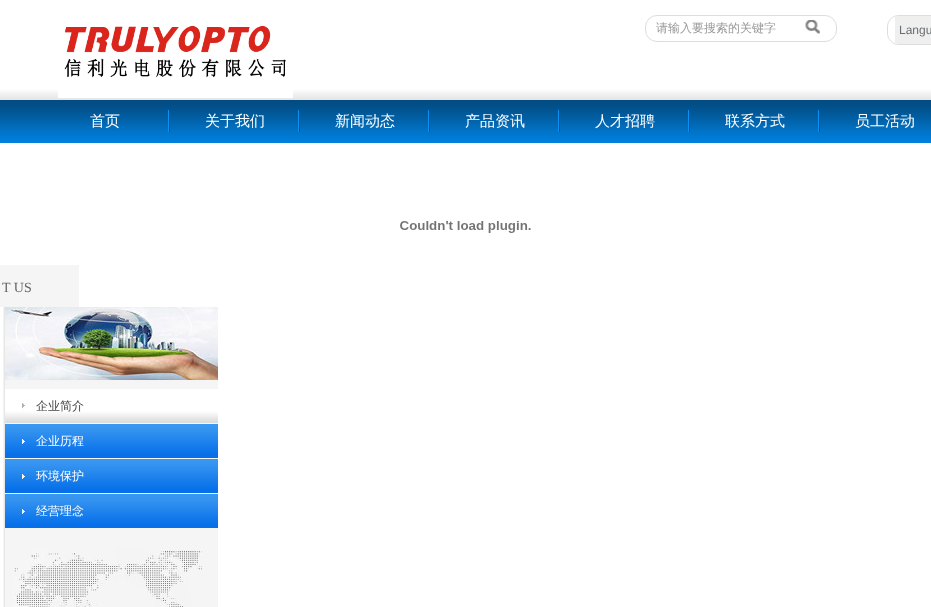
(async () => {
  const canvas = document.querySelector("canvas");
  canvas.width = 931;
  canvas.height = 607;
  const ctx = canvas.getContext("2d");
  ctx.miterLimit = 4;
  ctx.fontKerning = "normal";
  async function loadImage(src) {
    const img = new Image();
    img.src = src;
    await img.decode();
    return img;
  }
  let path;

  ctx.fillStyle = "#ffffff";
  ctx.fillRect(0, 0, 931, 607);
  ctx.drawImage(await loadImage("img/1.png"), 0, 90, 931, 53);
  ctx.drawImage(await loadImage("img/2.png"), 58, 25, 235, 73);
  ctx.beginPath();
  ctx.roundRect(645.5, 15.5, 191, 26, 11.5);
  ctx.strokeStyle = "#dddddd";
  ctx.stroke();
  ctx.drawImage(await loadImage("img/3.png"), 805, 20, 15, 14);
  path = new Path2D("M899 15.5H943.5V44.5H899C892.5 44.5 887.5 39.5 887.5 33V27C887.5 20.5 892.5 15.5 899 15.5Z");
  ctx.stroke(path);
  ctx.fillStyle = "#efefef";
  ctx.fillRect(895, 16, 36, 28);
  ctx.drawImage(await loadImage("img/4.png"), 168, 110, 2, 22);
  ctx.drawImage(await loadImage("img/4.png"), 298, 110, 2, 22);
  ctx.drawImage(await loadImage("img/4.png"), 428, 110, 2, 22);
  ctx.drawImage(await loadImage("img/4.png"), 558, 110, 2, 22);
  ctx.drawImage(await loadImage("img/4.png"), 688, 110, 2, 22);
  ctx.drawImage(await loadImage("img/4.png"), 818, 110, 2, 22);
  ctx.drawImage(await loadImage("img/5.png"), 400, 221, 131, 12);
  ctx.fillStyle = "#f5f5f5";
  ctx.fillRect(0, 265, 79, 42);
  ctx.drawImage(await loadImage("img/6.png"), 3, 307, 215, 300);
  ctx.drawImage(await loadImage("img/7.png"), 5, 307, 213, 73);
  ctx.drawImage(await loadImage("img/8.png"), 5, 389, 213, 34);
  ctx.drawImage(await loadImage("img/9.png"), 5, 424, 213, 34);
  ctx.drawImage(await loadImage("img/9.png"), 5, 459, 213, 34);
  ctx.drawImage(await loadImage("img/9.png"), 5, 494, 213, 34);
  ctx.drawImage(await loadImage("img/10.png"), 13, 546, 189, 61);
  ctx.font = "500 12px WenQuanYi Zen Hei";
  ctx.fillStyle = "#999999";
  ctx.fillText("请输入要搜索的关键字", 656, 32);
  ctx.font = "12px Liberation Sans";
  ctx.fillStyle = "#686e71";
  ctx.fillText("Langu", 899, 34);
  ctx.font = "500 15px WenQuanYi Zen Hei";
  ctx.fillStyle = "#ffffff";
  for (const [text, x, y] of [
    ["首页", 90, 126],
    ["关于我们", 205, 126],
    ["新闻动态", 335, 126],
    ["产品资讯", 465, 126],
    ["人才招聘", 595, 126],
    ["联系方式", 725, 126],
    ["员工活动", 855, 126],
  ]) {
    ctx.fillText(text, x, y);
  }
  ctx.font = "14px Liberation Serif";
  ctx.fillStyle = "#666666";
  ctx.fillText("T US", 2, 292);
  ctx.font = "500 12px WenQuanYi Zen Hei";
  ctx.fillStyle = "#444444";
  ctx.fillText("企业简介", 36, 410);
  ctx.fillStyle = "#ffffff";
  for (const [text, x, y] of [
    ["企业历程", 36, 445],
    ["环境保护", 36, 480],
    ["经营理念", 36, 515],
  ]) {
    ctx.fillText(text, x, y);
  }
})();
